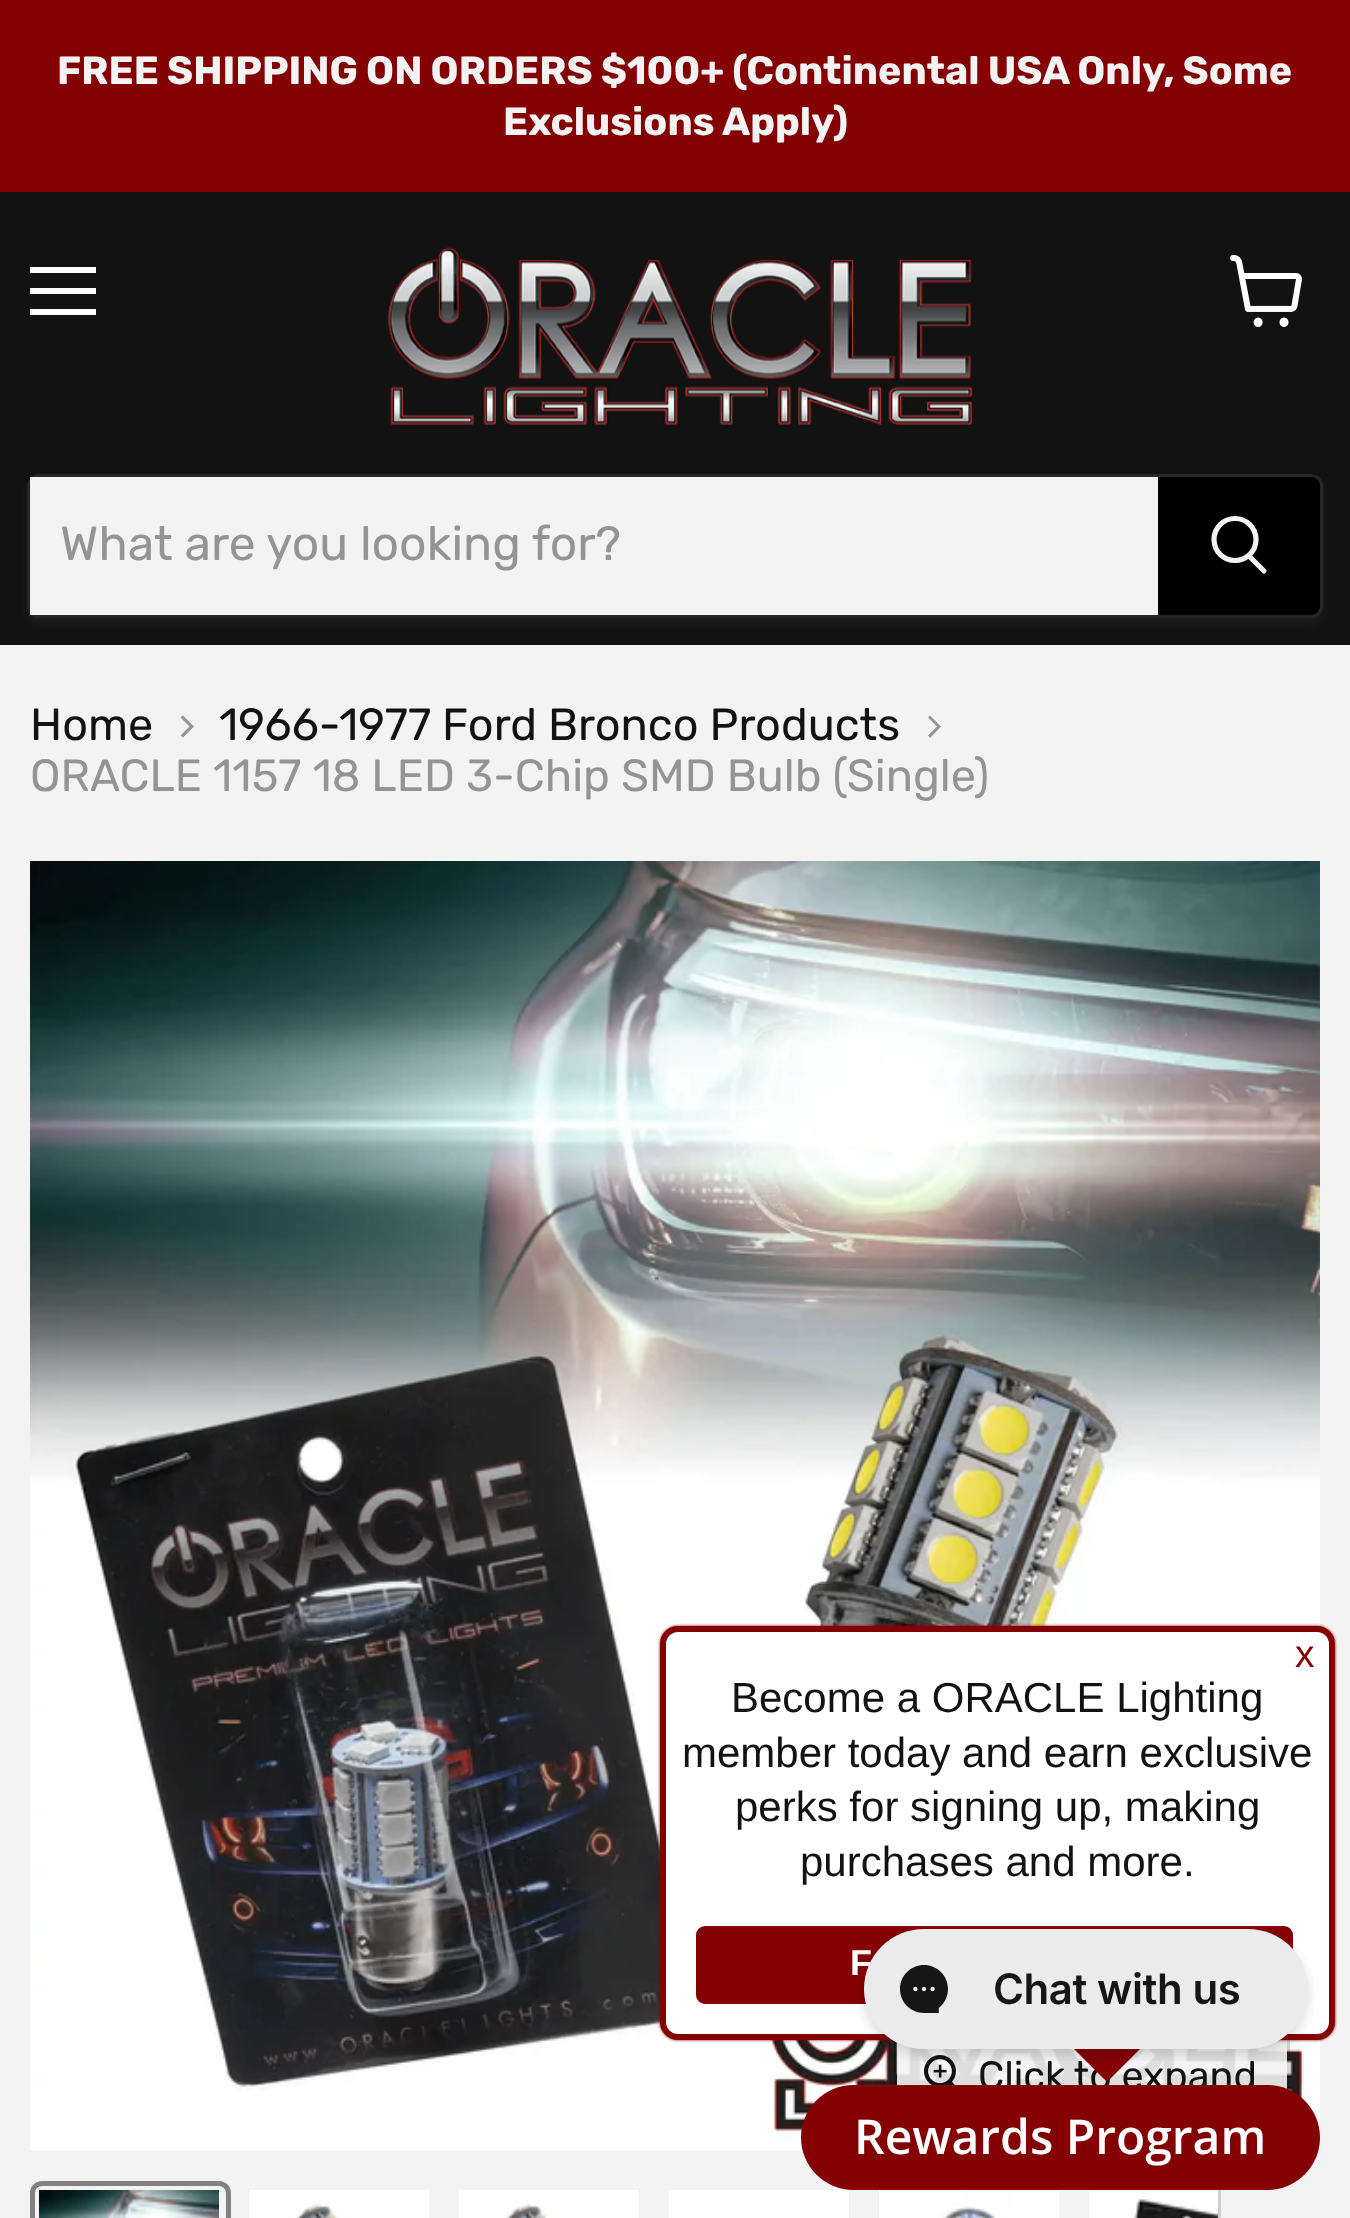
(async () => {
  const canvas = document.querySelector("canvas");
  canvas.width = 1350;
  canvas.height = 2218;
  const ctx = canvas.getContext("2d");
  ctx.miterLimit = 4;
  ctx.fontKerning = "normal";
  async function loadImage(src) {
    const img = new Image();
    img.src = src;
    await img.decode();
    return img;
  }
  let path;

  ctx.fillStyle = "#f3f3f3";
  ctx.fillRect(0, 0, 1350, 2218);
  for (const [x, y, w, h, color] of [
    [0, 0, 1350, 192, "#840104"],
    [0, 192, 1350, 453, "#121212"],
    [30, 267, 66, 6, "#ffffff"],
    [30, 288, 66, 6, "#ffffff"],
    [30, 309, 66, 6, "#ffffff"],
  ]) {
    ctx.fillStyle = color;
    ctx.fillRect(x, y, w, h);
  }
  ctx.drawImage(await loadImage("img/1.png"), 1230, 255, 72, 72);
  ctx.drawImage(await loadImage("img/2.png"), 387, 247, 586, 180);
  ctx.save();
  path = new Path2D("M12 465H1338V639H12ZM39 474H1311C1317.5 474 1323 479.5 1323 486V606C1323 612.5 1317.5 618 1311 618H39C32.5 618 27 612.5 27 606V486C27 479.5 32.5 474 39 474Z");
  ctx.clip(path, "evenodd");
  ctx.fillStyle = "rgba(122, 122, 122, 0.11)";
  ctx.filter = "blur(4.5px)";
  ctx.beginPath();
  ctx.roundRect(27, 480, 1296, 144, 12);
  ctx.fill();
  ctx.filter = "none";
  ctx.restore();
  ctx.beginPath();
  ctx.roundRect(28.5, 475.5, 1293, 141, 10.5);
  ctx.strokeStyle = "rgba(122, 122, 122, 0.2)";
  ctx.lineWidth = 3;
  ctx.stroke();
  ctx.fillStyle = "#f3f3f3";
  ctx.fillRect(30, 477, 1128, 138);
  ctx.fillStyle = "#000000";
  ctx.beginPath();
  ctx.roundRect(1159.5, 478.5, 159, 135, [0, 7.5, 7.5, 0]);
  ctx.fill();
  ctx.strokeStyle = "#000000";
  ctx.stroke();
  path = new Path2D("M1264 571L1249.5 556.5");
  ctx.strokeStyle = "#f3f3f3";
  ctx.lineWidth = 5.2;
  ctx.lineCap = "round";
  ctx.stroke(path);
  ctx.beginPath();
  ctx.arc(1235, 539.5, 21, 0, Math.PI * 2);
  ctx.stroke();
  ctx.fillStyle = "#949494";
  path = new Path2D("M180.5 735.5L183 737.5L194 726.5L183 715.5L180.5 717.5L189.5 726.5Z");
  ctx.fill(path, "evenodd");
  path = new Path2D("M928 735.5L930 738L941 726.5L930 715.5L928 717.5L937 726.5Z");
  ctx.fill(path, "evenodd");
  ctx.drawImage(await loadImage("img/3.png"), 30, 861, 1290, 1290);
  ctx.strokeStyle = "rgba(0, 0, 0, 0.15)";
  ctx.lineWidth = 3;
  ctx.strokeRect(895.5, 2032.5, 393, 87);
  ctx.fillStyle = "rgba(243, 243, 243, 0.9)";
  ctx.beginPath();
  ctx.roundRect(897, 2034, 390, 84, 9);
  ctx.fill();
  ctx.drawImage(await loadImage("img/4.png"), 924, 2055, 32, 30);
  ctx.beginPath();
  ctx.roundRect(32.5, 2183.5, 196, 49, 9.5);
  ctx.strokeStyle = "#818181";
  ctx.lineWidth = 5;
  ctx.stroke();
  ctx.drawImage(await loadImage("img/5.png"), 39, 2190, 180, 28);
  ctx.drawImage(await loadImage("img/6.png"), 249, 2190, 180, 28);
  ctx.drawImage(await loadImage("img/7.png"), 459, 2190, 180, 28);
  ctx.fillStyle = "#ffffff";
  ctx.fillRect(669, 2190, 180, 28);
  ctx.drawImage(await loadImage("img/8.png"), 879, 2190, 180, 28);
  ctx.drawImage(await loadImage("img/9.png"), 1089, 2190, 129, 28);
  ctx.fillStyle = "#cfcfcf";
  ctx.fillRect(1218, 2190, 3, 28);
  ctx.fillStyle = "#840104";
  ctx.filter = "blur(1.5px)";
  ctx.beginPath();
  ctx.roundRect(660, 1626, 675, 414, 18);
  ctx.fill();
  ctx.filter = "none";
  ctx.fillStyle = "#ffffff";
  ctx.beginPath();
  ctx.roundRect(663, 1629, 669, 408, 15);
  ctx.fill();
  ctx.strokeStyle = "#840104";
  ctx.lineWidth = 6;
  ctx.stroke();
  ctx.fillStyle = "#840104";
  ctx.beginPath();
  ctx.roundRect(696, 1926, 597, 78, 9);
  ctx.fill();
  ctx.wordSpacing = "-0.25px";
  ctx.font = "bold 39.4px Rubik";
  ctx.fillStyle = "#f3f3f3";
  ctx.fillText("FREE SHIPPING ON ORDERS $100+ (Continental USA Only, Some", 57, 84);
  ctx.wordSpacing = "0px";
  ctx.fillText("Exclusions Apply)", 503, 135);
  ctx.font = "48px Rubik";
  ctx.fillStyle = "#949494";
  ctx.fillText("What are you looking for?", 60, 560);
  ctx.font = "45px Rubik";
  ctx.fillStyle = "#121212";
  ctx.fillText("Home", 30, 740);
  ctx.fillText("1966-1977 Ford Bronco Products", 219, 740);
  ctx.fillStyle = "#949494";
  ctx.fillText("ORACLE 1157 18 LED 3-Chip SMD Bulb (Single)", 30, 791);
  ctx.font = "39.4px Rubik";
  ctx.fillStyle = "#121212";
  ctx.fillText("Click to expand", 978, 2089);
  ctx.font = "39px Liberation Sans";
  ctx.fillStyle = "#840104";
  ctx.fillText("x", 1295, 1667);
  ctx.font = "42px Liberation Sans";
  ctx.fillStyle = "#121212";
  for (const [text, x, y] of [
    ["Become a ORACLE Lighting", 731, 1712],
    ["member today and earn exclusive", 682, 1767],
    ["perks for signing up, making", 735, 1821],
    ["purchases and more.", 800, 1876],
  ]) {
    ctx.fillText(text, x, y);
  }
  ctx.font = "bold 36px Liberation Sans";
  ctx.fillStyle = "#ffffff";
  ctx.fillText("F", 850, 1975);
  ctx.fillStyle = "#840104";
  path = new Path2D("M1065 2040H1149L1107 2082Z");
  ctx.fill(path);
  ctx.drawImage(await loadImage("img/10.png"), 858, 1929, 456, 132);
  ctx.beginPath();
  ctx.roundRect(801, 2085, 519, 105, 52.5);
  ctx.fill();
  ctx.font = "600 48px Open Sans";
  ctx.fillStyle = "#ffffff";
  ctx.fillText("Rewards Program", 854, 2154);
})();
